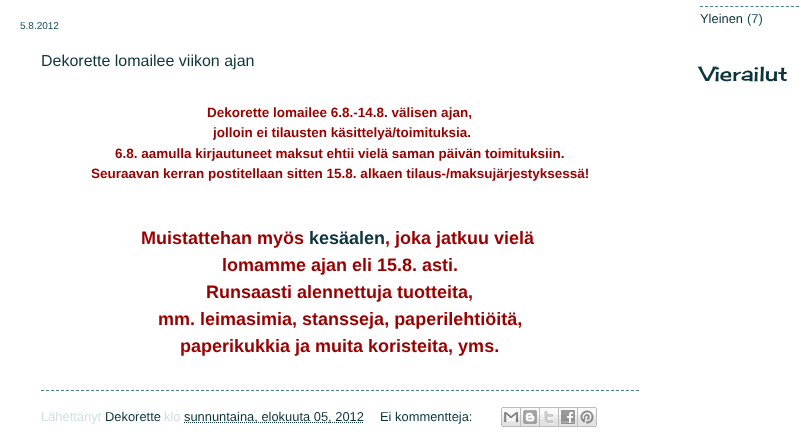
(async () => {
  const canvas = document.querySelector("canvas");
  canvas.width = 801;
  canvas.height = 435;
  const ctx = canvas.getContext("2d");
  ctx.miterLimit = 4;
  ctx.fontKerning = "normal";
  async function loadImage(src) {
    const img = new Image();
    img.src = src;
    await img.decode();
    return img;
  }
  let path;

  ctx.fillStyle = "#ffffff";
  ctx.fillRect(0, 0, 801, 435);
  path = new Path2D("M41 390.5H639");
  ctx.strokeStyle = "#45818e";
  ctx.setLineDash([3, 2]);
  ctx.stroke(path);
  path = new Path2D("M184 422.5H364");
  ctx.strokeStyle = "#0c343d";
  ctx.setLineDash([1, 1]);
  ctx.stroke(path);
  ctx.drawImage(await loadImage("img/1.png"), 501, 407, 20, 20);
  ctx.drawImage(await loadImage("img/2.png"), 521, 407, 19, 20);
  ctx.drawImage(await loadImage("img/3.png"), 540, 407, 19, 20);
  ctx.drawImage(await loadImage("img/4.png"), 559, 407, 19, 20);
  ctx.drawImage(await loadImage("img/5.png"), 578, 407, 19, 20);
  path = new Path2D("M700 6.5H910");
  ctx.strokeStyle = "#45818e";
  ctx.setLineDash([3, 2.05]);
  ctx.stroke(path);
  ctx.font = "10px Liberation Sans";
  ctx.fillStyle = "#134f5c";
  ctx.fillText("5.8.2012", 20, 29);
  ctx.font = "16px Liberation Sans";
  ctx.fillStyle = "#0c343d";
  ctx.fillText("Dekorette lomailee viikon ajan", 41, 66);
  ctx.font = "bold 13.5px Liberation Sans";
  ctx.fillStyle = "#990000";
  for (const [text, x, y] of [
    ["Dekorette lomailee 6.8.-14.8. välisen ajan,", 207, 117],
    ["jolloin ei tilausten käsittelyä/toimituksia.", 213, 137],
    ["6.8. aamulla kirjautuneet maksut ehtii vielä saman päivän toimituksiin.", 115, 158],
    ["Seuraavan kerran postitellaan sitten 15.8. alkaen tilaus-/maksujärjestyksessä!", 91, 178],
  ]) {
    ctx.fillText(text, x, y);
  }
  ctx.font = "bold 18px Liberation Sans";
  ctx.fillText("Muistattehan myös", 141, 244);
  ctx.fillStyle = "#0c343d";
  ctx.fillText("kesäalen", 309, 244);
  ctx.fillStyle = "#990000";
  for (const [text, x, y] of [
    [", joka jatkuu vielä", 385, 244],
    ["lomamme ajan eli 15.8. asti.", 222, 271],
    ["Runsaasti alennettuja tuotteita,", 206, 298],
    ["mm. leimasimia, stansseja, paperilehtiöitä,", 158, 325],
    ["paperikukkia ja muita koristeita, yms.", 180, 352],
  ]) {
    ctx.fillText(text, x, y);
  }
  ctx.font = "12.9px Liberation Sans";
  ctx.fillStyle = "#d0e0e3";
  ctx.fillText("Lähettänyt", 41, 421);
  ctx.fillStyle = "#0c343d";
  ctx.fillText("Dekorette", 105, 421);
  ctx.fillStyle = "#d0e0e3";
  ctx.fillText("klo", 164, 421);
  ctx.fillStyle = "#0c343d";
  for (const [text, x, y] of [
    ["sunnuntaina, elokuuta 05, 2012", 184, 421],
    ["Ei kommentteja:", 380, 421],
    ["Yleinen", 700, 23],
  ]) {
    ctx.fillText(text, x, y);
  }
  ctx.fillStyle = "#134f5c";
  ctx.fillText("(7)", 747, 23);
  ctx.font = "20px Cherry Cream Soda";
  ctx.fillStyle = "#0c343d";
  ctx.fillText("Vierailut", 700, 81);
})();
